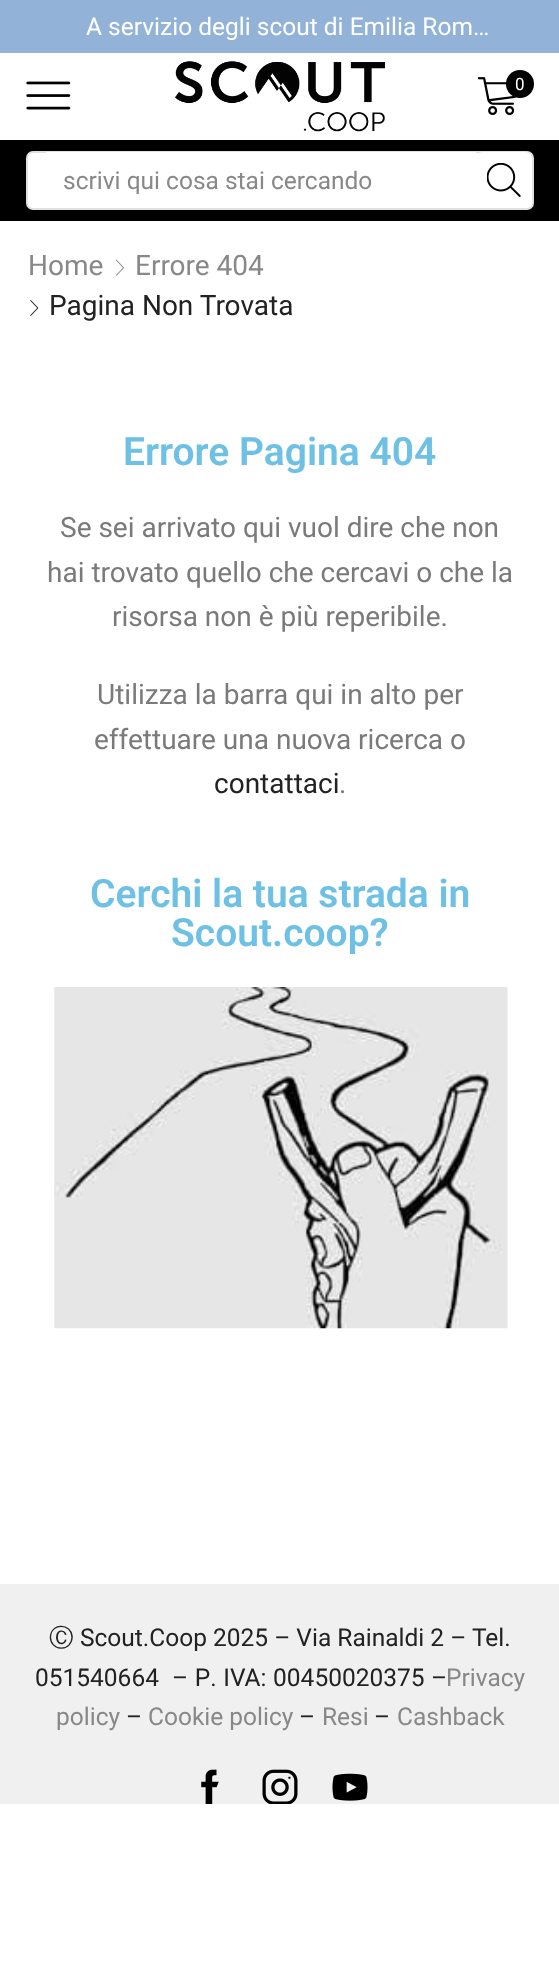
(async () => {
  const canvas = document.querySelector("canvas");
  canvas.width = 559;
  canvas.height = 1964;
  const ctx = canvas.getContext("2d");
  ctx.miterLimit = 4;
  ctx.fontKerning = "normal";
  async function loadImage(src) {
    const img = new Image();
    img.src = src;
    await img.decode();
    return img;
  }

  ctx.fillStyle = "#ffffff";
  ctx.fillRect(0, 0, 559, 1964);
  ctx.fillStyle = "#92b3d7";
  ctx.fillRect(0, 0, 559, 53);
  ctx.drawImage(await loadImage("img/1.png"), 26, 81, 45, 29);
  ctx.drawImage(await loadImage("img/2.png"), 175, 61, 210, 71);
  ctx.drawImage(await loadImage("img/3.png"), 477, 77, 39, 38);
  ctx.fillStyle = "#000000";
  ctx.beginPath();
  ctx.arc(520, 84, 14, 0, Math.PI * 2);
  ctx.fill();
  ctx.fillRect(0, 140, 559, 81);
  ctx.fillStyle = "#ffffff";
  ctx.beginPath();
  ctx.roundRect(27, 152, 506, 57, 6);
  ctx.fill();
  ctx.strokeStyle = "#e1e1e1";
  ctx.lineWidth = 2;
  ctx.stroke();
  ctx.fillRect(46, 152, 430, 1);
  ctx.beginPath();
  ctx.roundRect(476, 152, 56, 56, 7);
  ctx.fill();
  ctx.drawImage(await loadImage("img/4.png"), 487, 163, 34, 34);
  ctx.drawImage(await loadImage("img/5.png"), 116, 259, 8, 17);
  ctx.drawImage(await loadImage("img/6.png"), 30, 300, 9, 16);
  ctx.drawImage(await loadImage("img/7.png"), 54, 987, 454, 342);
  ctx.fillStyle = "#f0f0f0";
  ctx.fillRect(0, 1584, 559, 220);
  ctx.drawImage(await loadImage("img/8.png"), 201, 1769, 18, 35);
  ctx.drawImage(await loadImage("img/9.png"), 262, 1769, 36, 35);
  ctx.drawImage(await loadImage("img/10.png"), 332, 1773, 36, 28);
  ctx.font = "24.5px Roboto";
  ctx.fillStyle = "#ffffff";
  ctx.fillText("A servizio degli scout di Emilia Rom…", 86, 35);
  ctx.font = "17px Roboto";
  ctx.fillText("0", 515, 90);
  ctx.font = "24.5px Roboto";
  ctx.fillStyle = "#888888";
  ctx.fillText("scrivi qui cosa stai cercando", 63, 189);
  ctx.font = "28px Roboto";
  ctx.fillText("Home", 28, 275);
  ctx.fillText("Errore 404", 135, 275);
  ctx.fillStyle = "#222222";
  ctx.fillText("Pagina Non Trovata", 49, 315);
  ctx.font = "600 39px Roboto";
  ctx.fillStyle = "#6ec1e4";
  ctx.fillText("Errore Pagina 404", 123, 465);
  ctx.font = "28px Roboto";
  ctx.fillStyle = "#7a7a7a";
  for (const [text, x, y] of [
    ["Se sei arrivato qui vuol dire che non", 60, 537],
    ["hai trovato quello che cercavi o che la", 47, 582],
    ["risorsa non è più reperibile.", 112, 626],
    ["Utilizza la barra qui in alto per", 97, 704],
    ["effettuare una nuova ricerca o", 94, 749],
  ]) {
    ctx.fillText(text, x, y);
  }
  ctx.fillStyle = "#222222";
  ctx.fillText("contattaci", 214, 793);
  ctx.fillStyle = "#7a7a7a";
  ctx.fillText(".", 339, 793);
  ctx.font = "600 39px Roboto";
  ctx.fillStyle = "#6ec1e4";
  ctx.fillText("Cerchi la tua strada in", 90, 907);
  ctx.fillText("Scout.coop?", 171, 946);
  ctx.font = "500 24.5px WenQuanYi Zen Hei";
  ctx.fillStyle = "#222222";
  ctx.fillText("Ⓒ", 49, 1646);
  ctx.font = "24.5px Roboto";
  ctx.fillText("Scout.Coop 2025 – Via Rainaldi 2 – Tel.", 80, 1646);
  ctx.wordSpacing = "0.5px";
  ctx.fillText("051540664  – P. IVA: 00450020375 –", 35, 1686);
  ctx.wordSpacing = "0px";
  ctx.fillStyle = "#888888";
  ctx.fillText("Privacy", 446, 1686);
  ctx.fillText("policy", 56, 1725);
  ctx.fillStyle = "#222222";
  ctx.fillText("–", 126, 1725);
  ctx.fillStyle = "#888888";
  ctx.fillText("Cookie policy", 148, 1725);
  ctx.fillStyle = "#222222";
  ctx.fillText("–", 299, 1725);
  ctx.fillStyle = "#888888";
  ctx.fillText("Resi", 322, 1725);
  ctx.fillStyle = "#222222";
  ctx.fillText("–", 374, 1725);
  ctx.fillStyle = "#888888";
  ctx.fillText("Cashback", 397, 1725);
})();
